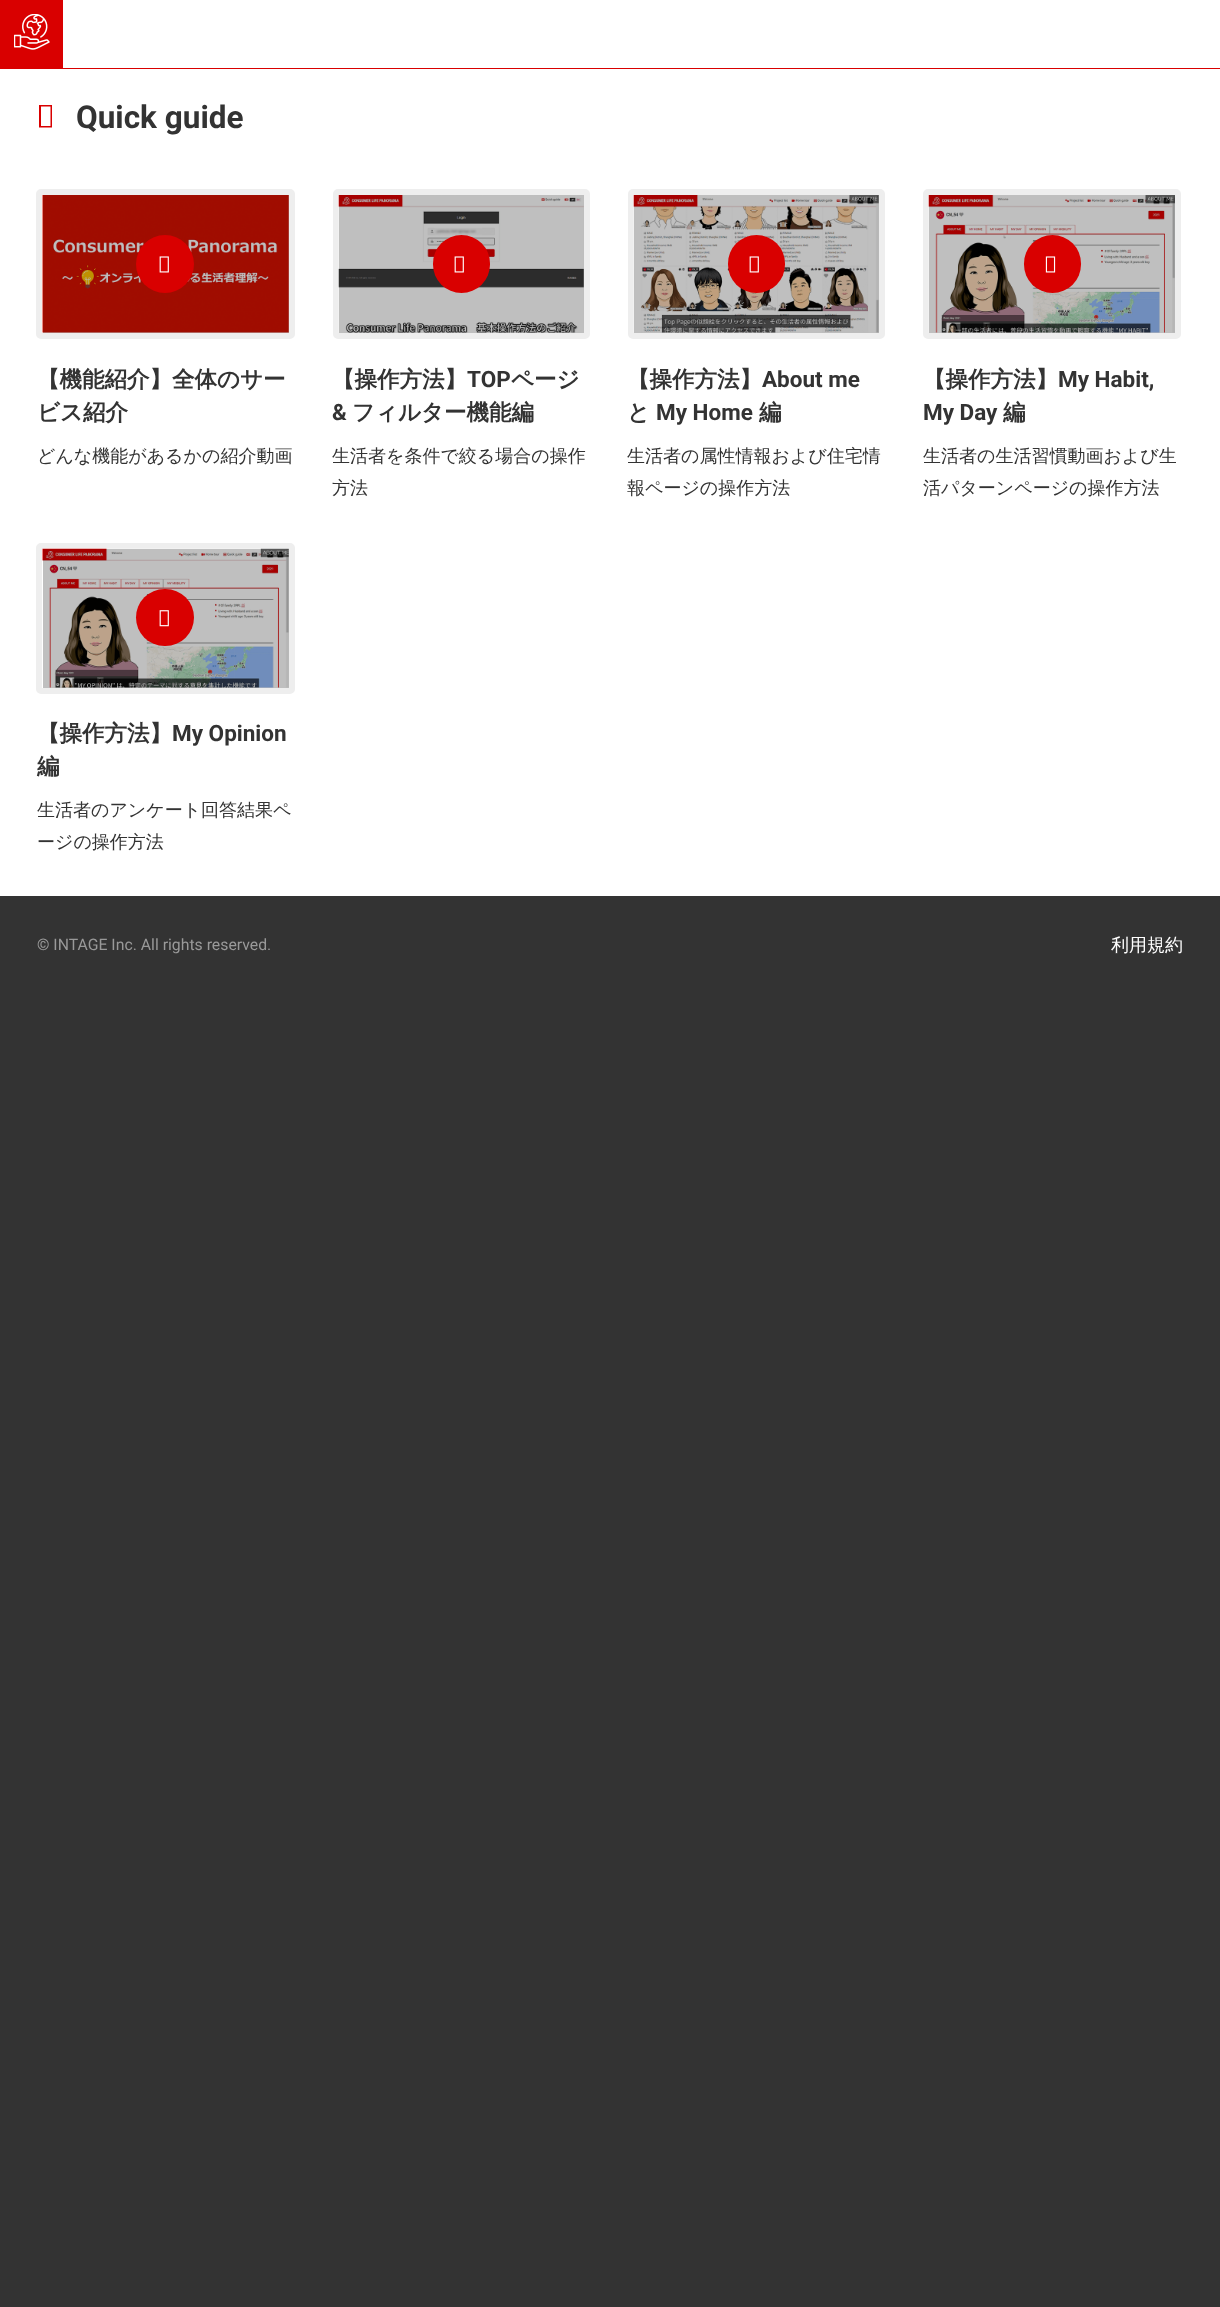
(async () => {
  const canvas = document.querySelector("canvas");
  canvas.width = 1220;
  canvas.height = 2307;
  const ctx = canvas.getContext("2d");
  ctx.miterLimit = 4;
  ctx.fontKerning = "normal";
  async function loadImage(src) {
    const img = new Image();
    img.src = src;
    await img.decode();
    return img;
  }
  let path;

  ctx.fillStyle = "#333333";
  ctx.fillRect(0, 0, 1220, 2307);
  for (const [x, y, w, h, color] of [
    [63, 0, 1157, 68, "#ffffff"],
    [0, 68, 1220, 1, "#d90000"],
    [0, 0, 63, 68, "#d90000"],
  ]) {
    ctx.fillStyle = color;
    ctx.fillRect(x, y, w, h);
  }
  ctx.drawImage(await loadImage("img/1.png"), 14, 14, 36, 36);
  for (const [x, y, w, h, color] of [
    [0, 69, 1220, 827, "#ffffff"],
    [43, 549, 246, 139, "#bfbfbf"],
    [929, 332, 246, 1, "#bfbfbf"],
    [43, 195, 246, 138, "#bfbfbf"],
  ]) {
    ctx.fillStyle = color;
    ctx.fillRect(x, y, w, h);
  }
  ctx.fillStyle = "#d90000";
  path = new Path2D("M39 127.5V105H52V127.5ZM41 126H50.5V106.5H41Z");
  ctx.fill(path);
  ctx.beginPath();
  ctx.roundRect(39, 192, 253, 144, 2);
  ctx.strokeStyle = "#eeeeee";
  ctx.lineWidth = 6;
  ctx.stroke();
  ctx.drawImage(await loadImage("img/2.png"), 42, 195, 247, 138);
  ctx.beginPath();
  ctx.arc(165, 264, 29, 0, Math.PI * 2);
  ctx.fill();
  ctx.drawImage(await loadImage("img/3.png"), 159, 256, 10, 17);
  ctx.fillStyle = "#bfbfbf";
  ctx.beginPath();
  ctx.roundRect(336, 192, 251, 144, 2);
  ctx.fill();
  ctx.stroke();
  ctx.drawImage(await loadImage("img/4.png"), 338, 195, 246, 138);
  ctx.fillStyle = "#d90000";
  ctx.beginPath();
  ctx.roundRect(433, 235, 57, 58, 28.5);
  ctx.fill();
  ctx.drawImage(await loadImage("img/3.png"), 454, 256, 10, 17);
  ctx.fillStyle = "#bfbfbf";
  ctx.beginPath();
  ctx.roundRect(631, 192, 251, 144, 2);
  ctx.fill();
  ctx.stroke();
  ctx.drawImage(await loadImage("img/5.png"), 633, 195, 246, 138);
  ctx.fillStyle = "#d90000";
  ctx.beginPath();
  ctx.roundRect(728, 235, 57, 58, 28.5);
  ctx.fill();
  ctx.drawImage(await loadImage("img/3.png"), 749, 256, 10, 17);
  ctx.beginPath();
  ctx.roundRect(926, 192, 252, 144, 2);
  ctx.stroke();
  ctx.drawImage(await loadImage("img/6.png"), 928, 195, 247, 138);
  ctx.beginPath();
  ctx.roundRect(1024, 235, 57, 58, 28.5);
  ctx.fill();
  ctx.drawImage(await loadImage("img/7.png"), 1045, 256, 11, 17);
  ctx.beginPath();
  ctx.roundRect(39, 546, 253, 145, 2);
  ctx.stroke();
  ctx.drawImage(await loadImage("img/8.png"), 42, 548, 247, 140);
  ctx.beginPath();
  ctx.roundRect(136, 589, 58, 57, 28.5);
  ctx.fill();
  ctx.drawImage(await loadImage("img/9.png"), 159, 610, 10, 17);
  ctx.font = "bold 31.5px Roboto";
  ctx.fillStyle = "#333333";
  ctx.fillText("Quick guide", 76, 128);
  ctx.font = "bold 22.5px WenQuanYi Zen Hei";
  ctx.fillText("【機能紹介】全体のサー", 37, 387);
  ctx.fillText("ビス紹介", 37, 420);
  ctx.font = "500 18px WenQuanYi Zen Hei";
  ctx.fillText("どんな機能があるかの紹介動画", 37, 462);
  ctx.font = "bold 22.5px WenQuanYi Zen Hei";
  ctx.fillText("【操作方法】", 332, 387);
  ctx.font = "bold 22.5px Roboto";
  ctx.fillText("TOP", 467, 387);
  ctx.font = "bold 22.5px WenQuanYi Zen Hei";
  ctx.fillText("ページ", 511, 387);
  ctx.font = "bold 22.5px Roboto";
  ctx.fillText("&", 332, 420);
  ctx.font = "bold 22.5px WenQuanYi Zen Hei";
  ctx.fillText("フィルター機能編", 352, 420);
  ctx.font = "500 18px WenQuanYi Zen Hei";
  ctx.fillText("生活者を条件で絞る場合の操作", 332, 462);
  ctx.fillText("方法", 332, 494);
  ctx.font = "bold 22.5px WenQuanYi Zen Hei";
  ctx.fillText("【操作方法】", 627, 387);
  ctx.font = "bold 22.5px Roboto";
  ctx.fillText("About me", 762, 387);
  ctx.font = "bold 22.5px WenQuanYi Zen Hei";
  ctx.fillText("と", 627, 420);
  ctx.font = "bold 22.5px Roboto";
  ctx.fillText("My Home", 656, 420);
  ctx.font = "bold 22.5px WenQuanYi Zen Hei";
  ctx.fillText("編", 759, 420);
  ctx.font = "500 18px WenQuanYi Zen Hei";
  ctx.fillText("生活者の属性情報および住宅情", 627, 462);
  ctx.fillText("報ページの操作方法", 627, 494);
  ctx.font = "bold 22.5px WenQuanYi Zen Hei";
  ctx.fillText("【操作方法】", 923, 387);
  ctx.font = "bold 22.5px Roboto";
  ctx.fillText("My Habit,", 1058, 387);
  ctx.fillText("My Day", 923, 420);
  ctx.font = "bold 22.5px WenQuanYi Zen Hei";
  ctx.fillText("編", 1003, 420);
  ctx.font = "500 18px WenQuanYi Zen Hei";
  ctx.fillText("生活者の生活習慣動画および生", 923, 462);
  ctx.fillText("活パターンページの操作方法", 923, 494);
  ctx.font = "bold 22.5px WenQuanYi Zen Hei";
  ctx.fillText("【操作方法】", 37, 741);
  ctx.font = "bold 22.5px Roboto";
  ctx.fillText("My Opinion", 172, 741);
  ctx.font = "bold 22.5px WenQuanYi Zen Hei";
  ctx.fillText("編", 37, 774);
  ctx.font = "500 18px WenQuanYi Zen Hei";
  ctx.fillText("生活者のアンケート回答結果ペ", 37, 816);
  ctx.fillText("ージの操作方法", 37, 848);
  ctx.font = "15.8px Roboto";
  ctx.fillStyle = "#999999";
  ctx.fillText("© INTAGE Inc. All rights reserved.", 37, 950);
  ctx.font = "500 18px WenQuanYi Zen Hei";
  ctx.fillStyle = "#ffffff";
  ctx.fillText("利用規約", 1111, 951);
})();
